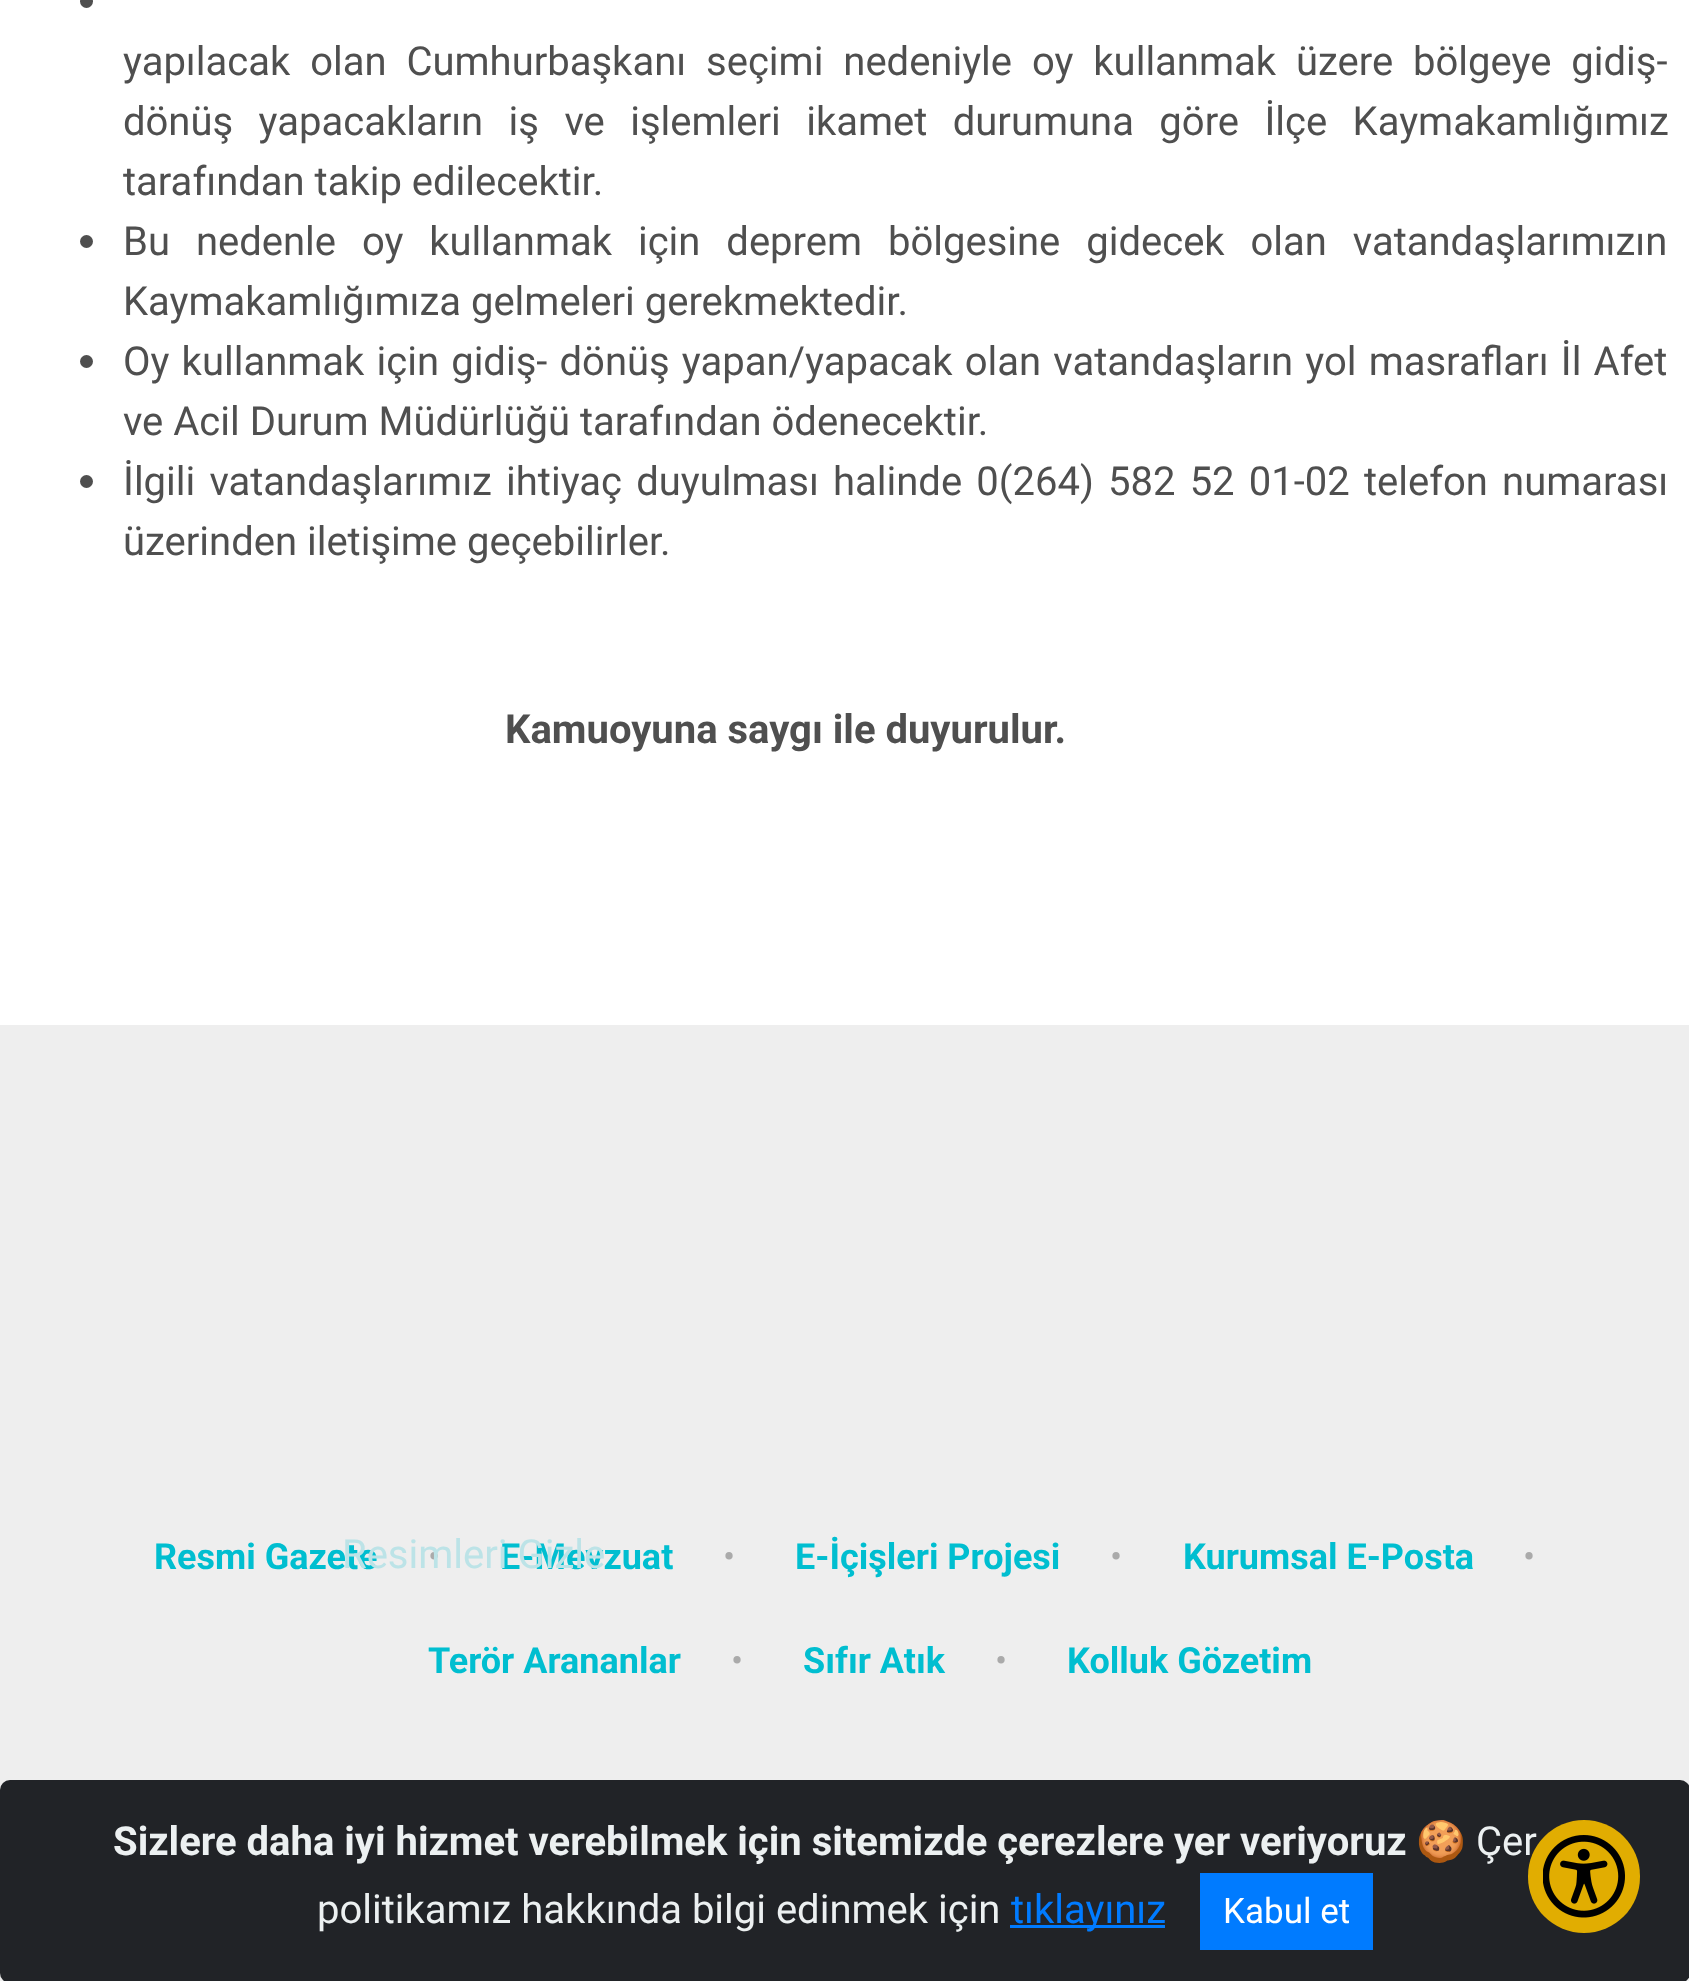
(async () => {
  const canvas = document.querySelector("canvas");
  canvas.width = 1689;
  canvas.height = 1981;
  const ctx = canvas.getContext("2d");
  ctx.miterLimit = 4;
  ctx.fontKerning = "normal";
  async function loadImage(src) {
    const img = new Image();
    img.src = src;
    await img.decode();
    return img;
  }

  ctx.fillStyle = "#ffffff";
  ctx.fillRect(0, 0, 1689, 1981);
  ctx.fillStyle = "#4f4f4f";
  ctx.beginPath();
  ctx.arc(86.5, 1.5, 6.5, 0, Math.PI * 2);
  ctx.fill();
  ctx.beginPath();
  ctx.arc(86.5, 241.5, 6.5, 0, Math.PI * 2);
  ctx.fill();
  ctx.beginPath();
  ctx.arc(86.5, 361.5, 6.5, 0, Math.PI * 2);
  ctx.fill();
  ctx.beginPath();
  ctx.arc(86.5, 481.5, 6.5, 0, Math.PI * 2);
  ctx.fill();
  ctx.fillStyle = "#eeeeee";
  ctx.fillRect(0, 1025, 1689, 956);
  ctx.fillStyle = "#212327";
  ctx.beginPath();
  ctx.roundRect(0, 1780, 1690, 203, 10);
  ctx.fill();
  ctx.fillStyle = "#007bff";
  ctx.fillRect(1010, 1925, 155, 3);
  ctx.fillRect(1200, 1873, 173, 77);
  ctx.wordSpacing = "10px";
  ctx.font = "40px Roboto";
  ctx.fillStyle = "#4f4f4f";
  ctx.fillText("yapılacak olan Cumhurbaşkanı seçimi nedeniyle oy kullanmak üzere bölgeye gidiş-", 123, 75);
  ctx.wordSpacing = "15.5px";
  ctx.fillText("dönüş yapacakların iş ve işlemleri ikamet durumuna göre İlçe Kaymakamlığımız", 123, 135);
  ctx.wordSpacing = "0px";
  ctx.fillText("tarafından takip edilecektir.", 123, 195);
  ctx.wordSpacing = "16px";
  ctx.fillText("Bu nedenle oy kullanmak için deprem bölgesine gidecek olan vatandaşlarımızın", 123, 255);
  ctx.wordSpacing = "0px";
  ctx.fillText("Kaymakamlığımıza gelmeleri gerekmektedir.", 123, 315);
  ctx.wordSpacing = "2.25px";
  ctx.fillText("Oy kullanmak için gidiş- dönüş yapan/yapacak olan vatandaşların yol masrafları İl Afet", 123, 375);
  ctx.wordSpacing = "0px";
  ctx.fillText("ve Acil Durum Müdürlüğü tarafından ödenecektir.", 123, 435);
  ctx.wordSpacing = "4.25px";
  ctx.fillText("İlgili vatandaşlarımız ihtiyaç duyulması halinde 0(264) 582 52 01-02 telefon numarası", 123, 495);
  ctx.wordSpacing = "0px";
  ctx.fillText("üzerinden iletişime geçebilirler.", 123, 555);
  ctx.font = "bold 40px Roboto";
  ctx.fillText("Kamuoyuna saygı ile duyurulur.", 505, 743);
  ctx.font = "bold 36px Roboto";
  ctx.fillStyle = "#00bed0";
  ctx.fillText("Resmi Gazete", 154, 1569);
  ctx.font = "36px Roboto";
  ctx.fillStyle = "#aaaaaa";
  ctx.fillText("•", 428, 1569);
  ctx.font = "bold 36px Roboto";
  ctx.fillStyle = "#00bed0";
  ctx.fillText("E-Mevzuat", 500, 1569);
  ctx.font = "36px Roboto";
  ctx.fillStyle = "#aaaaaa";
  ctx.fillText("•", 723, 1569);
  ctx.font = "bold 36px Roboto";
  ctx.fillStyle = "#00bed0";
  ctx.fillText("E-İçişleri Projesi", 795, 1569);
  ctx.font = "36px Roboto";
  ctx.fillStyle = "#aaaaaa";
  ctx.fillText("•", 1110, 1569);
  ctx.font = "bold 36px Roboto";
  ctx.fillStyle = "#00bed0";
  ctx.fillText("Kurumsal E-Posta", 1183, 1569);
  ctx.font = "36px Roboto";
  ctx.fillStyle = "#aaaaaa";
  ctx.fillText("•", 1523, 1569);
  ctx.font = "bold 36px Roboto";
  ctx.fillStyle = "#00bed0";
  ctx.fillText("Terör Arananlar", 428, 1673);
  ctx.font = "36px Roboto";
  ctx.fillStyle = "#aaaaaa";
  ctx.fillText("•", 731, 1673);
  ctx.font = "bold 36px Roboto";
  ctx.fillStyle = "#00bed0";
  ctx.fillText("Sıfır Atık", 803, 1673);
  ctx.font = "36px Roboto";
  ctx.fillStyle = "#aaaaaa";
  ctx.fillText("•", 995, 1673);
  ctx.font = "bold 36px Roboto";
  ctx.fillStyle = "#00bed0";
  ctx.fillText("Kolluk Gözetim", 1067, 1673);
  ctx.font = "40px Roboto";
  ctx.fillStyle = "#bce3e7";
  ctx.fillText("Resimleri Gizle", 342, 1568);
  ctx.font = "bold 40px Roboto";
  ctx.fillStyle = "#ecf0f1";
  ctx.fillText("Sizlere daha iyi hizmet verebilmek için sitemizde çerezlere yer veriyoruz", 113, 1855);
  ctx.font = "40px Noto Color Emoji";
  ctx.fillText("🍪", 1416, 1855);
  ctx.font = "40px Roboto";
  ctx.fillText("Çer", 1476, 1855);
  ctx.fillStyle = "#e1ad01";
  ctx.beginPath();
  ctx.roundRect(1528, 1820, 112, 113, 56);
  ctx.fill();
  ctx.drawImage(await loadImage("img/1.png"), 1543, 1835, 82, 83);
  ctx.fillStyle = "#ecf0f1";
  ctx.fillText("politikamız hakkında bilgi edinmek için", 317, 1923);
  ctx.fillStyle = "#007bff";
  ctx.fillText("tıklayınız", 1011, 1923);
  ctx.font = "35px Roboto";
  ctx.fillStyle = "#ffffff";
  ctx.fillText("Kabul et", 1223, 1923);
})();
